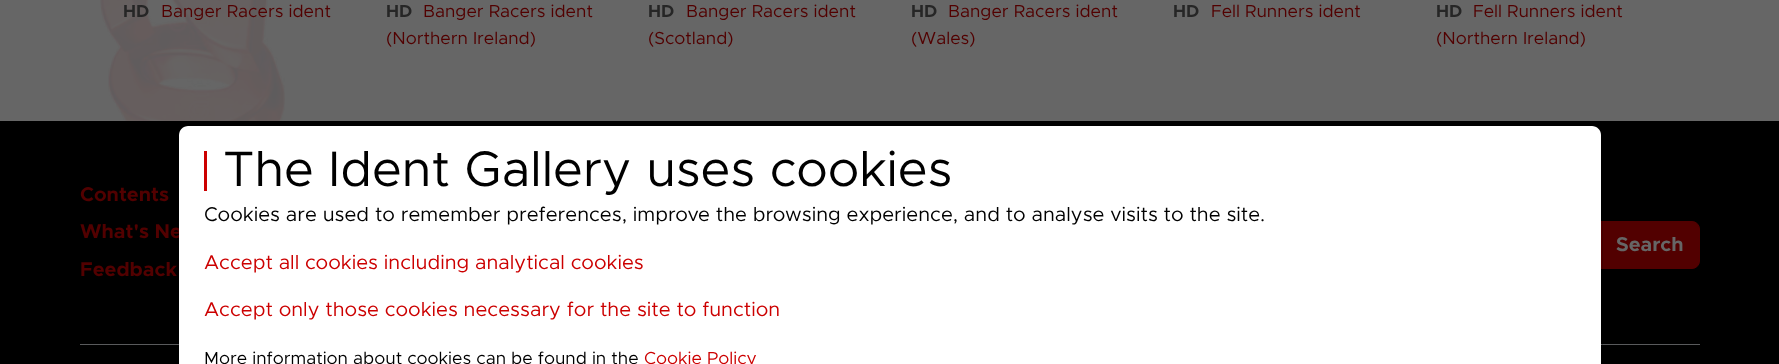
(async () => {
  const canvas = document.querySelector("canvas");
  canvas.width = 1779;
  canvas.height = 364;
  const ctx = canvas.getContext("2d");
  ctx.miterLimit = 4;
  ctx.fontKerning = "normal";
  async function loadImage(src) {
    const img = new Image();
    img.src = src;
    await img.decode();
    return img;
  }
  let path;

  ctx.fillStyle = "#666666";
  ctx.fillRect(0, 0, 1779, 364);
  ctx.drawImage(await loadImage("img/1.png"), 100, 0, 185, 121);
  ctx.fillStyle = "#000000";
  ctx.fillRect(0, 121, 1779, 243);
  ctx.fillStyle = "#520000";
  ctx.beginPath();
  ctx.roundRect(1600.5, 221.5, 99, 47, [0, 7.5, 7.5, 0]);
  ctx.fill();
  ctx.strokeStyle = "#520000";
  ctx.stroke();
  ctx.fillStyle = "#595a5c";
  ctx.fillRect(80, 344, 1620, 1);
  ctx.font = "bold 17.5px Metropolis";
  ctx.fillStyle = "#262626";
  ctx.fillText("HD", 123, 17);
  ctx.font = "17.5px Metropolis";
  ctx.fillStyle = "#520000";
  ctx.fillText("Banger Racers ident", 161, 17);
  ctx.font = "bold 17.5px Metropolis";
  ctx.fillStyle = "#262626";
  ctx.fillText("HD", 386, 17);
  ctx.font = "17.5px Metropolis";
  ctx.fillStyle = "#520000";
  ctx.fillText("Banger Racers ident", 423, 17);
  ctx.fillText("(Northern Ireland)", 386, 44);
  ctx.font = "bold 17.5px Metropolis";
  ctx.fillStyle = "#262626";
  ctx.fillText("HD", 648, 17);
  ctx.font = "17.5px Metropolis";
  ctx.fillStyle = "#520000";
  ctx.fillText("Banger Racers ident", 686, 17);
  ctx.fillText("(Scotland)", 648, 44);
  ctx.font = "bold 17.5px Metropolis";
  ctx.fillStyle = "#262626";
  ctx.fillText("HD", 911, 17);
  ctx.font = "17.5px Metropolis";
  ctx.fillStyle = "#520000";
  ctx.fillText("Banger Racers ident", 948, 17);
  ctx.fillText("(Wales)", 911, 44);
  ctx.font = "bold 17.5px Metropolis";
  ctx.fillStyle = "#262626";
  ctx.fillText("HD", 1173, 17);
  ctx.font = "17.5px Metropolis";
  ctx.fillStyle = "#520000";
  ctx.fillText("Fell Runners ident", 1211, 17);
  ctx.font = "bold 17.5px Metropolis";
  ctx.fillStyle = "#262626";
  ctx.fillText("HD", 1436, 17);
  ctx.font = "17.5px Metropolis";
  ctx.fillStyle = "#520000";
  ctx.fillText("Fell Runners ident", 1473, 17);
  ctx.fillText("(Northern Ireland)", 1436, 44);
  ctx.font = "bold 20px Metropolis";
  ctx.fillText("Contents", 80, 201);
  ctx.fillText("What's Ne", 80, 238);
  ctx.fillStyle = "#ffffff";
  path = new Path2D("M188 126H1592C1597 126 1601 130 1601 135V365H179V135C179 130 183 126 188 126Z");
  ctx.fill(path);
  ctx.beginPath();
  ctx.roundRect(178.5, 125.5, 1424, 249, 9.5);
  ctx.strokeStyle = "rgba(0, 0, 0, 0.18)";
  ctx.stroke();
  ctx.font = "17.5px Metropolis";
  ctx.fillStyle = "#cc0000";
  ctx.fillText("Cookie Policy", 644, 364);
  ctx.fillStyle = "#000000";
  ctx.fillText("More information about cookies can be found in the", 204, 364);
  ctx.font = "20px Metropolis";
  ctx.fillStyle = "#cc0000";
  ctx.fillText("Accept only those cookies necessary for the site to function", 204, 316);
  ctx.fillText("Accept all cookies including analytical cookies", 204, 269);
  ctx.fillStyle = "#000000";
  ctx.fillText("Cookies are used to remember preferences, improve the browsing experience, and to analyse visits to the site.", 204, 221);
  ctx.font = "50px Metropolis";
  ctx.fillText("The Ident Gallery uses cookies", 223, 186);
  ctx.fillStyle = "#cc0000";
  ctx.fillRect(204, 151, 3, 40);
  ctx.font = "bold 20px Metropolis";
  ctx.fillStyle = "#520000";
  ctx.fillText("Feedback", 80, 276);
  ctx.fillStyle = "#666666";
  ctx.fillText("Search", 1616, 251);
})();
